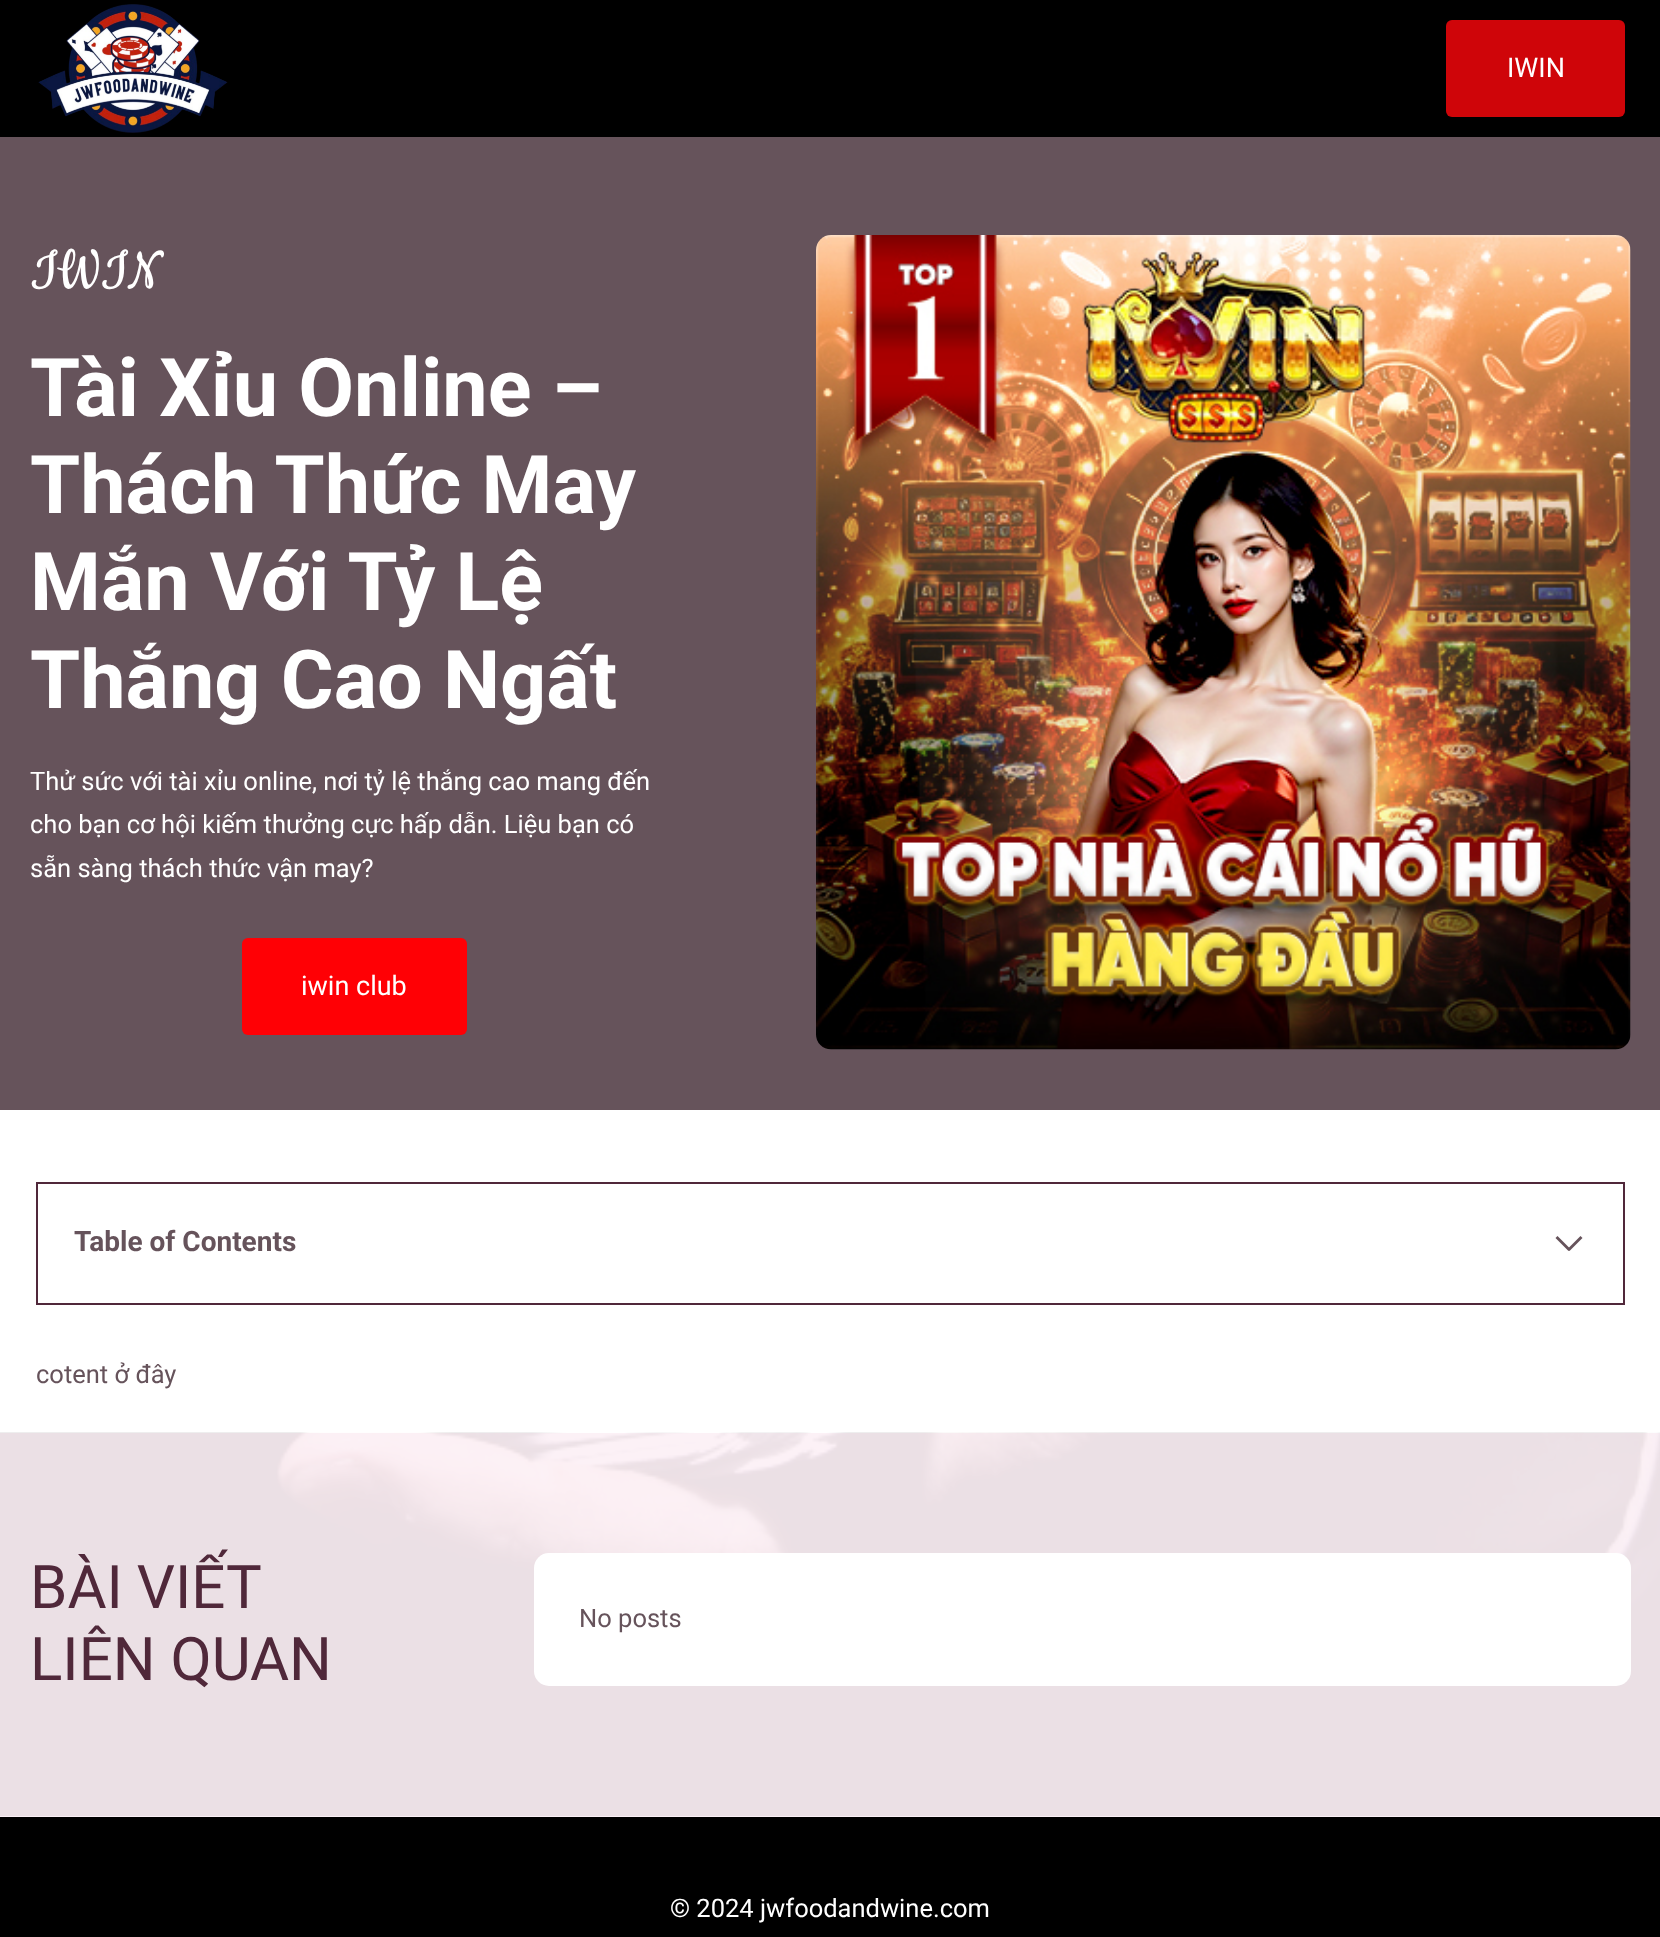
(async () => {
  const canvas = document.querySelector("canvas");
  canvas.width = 1660;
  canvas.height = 1937;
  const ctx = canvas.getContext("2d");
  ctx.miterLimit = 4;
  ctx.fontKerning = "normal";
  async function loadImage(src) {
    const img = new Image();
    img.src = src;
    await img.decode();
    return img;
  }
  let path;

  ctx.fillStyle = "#ffffff";
  ctx.fillRect(0, 0, 1660, 1937);
  ctx.fillStyle = "#000000";
  ctx.fillRect(0, 0, 1660, 137);
  ctx.drawImage(await loadImage("img/1.png"), 38, 4, 190, 129);
  ctx.fillStyle = "#cf0509";
  ctx.beginPath();
  ctx.roundRect(1446, 20, 179, 97, 6);
  ctx.fill();
  ctx.fillStyle = "#66535b";
  ctx.fillRect(0, 137, 1660, 973);
  ctx.fillStyle = "#ff0005";
  ctx.beginPath();
  ctx.roundRect(242, 938, 225, 97, 6);
  ctx.fill();
  ctx.drawImage(await loadImage("img/2.png"), 816, 235, 815, 815);
  ctx.strokeStyle = "#50283a";
  ctx.lineWidth = 2;
  ctx.strokeRect(37, 1183, 1587, 121);
  ctx.fillStyle = "#66535b";
  path = new Path2D("M1557.5 1236L1570.5 1249L1568.5 1251L1555.5 1238Z");
  ctx.fill(path);
  path = new Path2D("M1567.5 1249L1580.5 1236L1582.5 1238L1569.5 1251Z");
  ctx.fill(path);
  ctx.fillStyle = "#fcf1f6";
  ctx.fillRect(0, 1433, 1660, 384);
  ctx.drawImage(await loadImage("img/3.png"), 0, 1432, 1660, 384);
  ctx.fillStyle = "#ffffff";
  ctx.beginPath();
  ctx.roundRect(534, 1553, 1097, 133, 15);
  ctx.fill();
  ctx.fillStyle = "#000000";
  ctx.fillRect(0, 1817, 1660, 120);
  ctx.font = "27px Roboto";
  ctx.fillStyle = "#ffffff";
  ctx.fillText("IWIN", 1507, 77);
  ctx.font = "63px Cookie";
  ctx.fillText("IWIN", 30, 288);
  ctx.font = "bold 81px Roboto";
  for (const [text, x, y] of [
    ["Tài Xỉu Online –", 30, 416],
    ["Thách Thức May", 30, 513],
    ["Mắn Với Tỷ Lệ", 30, 610],
    ["Thắng Cao Ngất", 30, 708],
  ]) {
    ctx.fillText(text, x, y);
  }
  ctx.font = "25.5px Roboto";
  for (const [text, x, y] of [
    ["Thử sức với tài xỉu online, nơi tỷ lệ thắng cao mang đến", 30, 790],
    ["cho bạn cơ hội kiếm thưởng cực hấp dẫn. Liệu bạn có", 30, 833],
    ["sẵn sàng thách thức vận may?", 30, 877],
  ]) {
    ctx.fillText(text, x, y);
  }
  ctx.font = "27px Roboto";
  ctx.fillText("iwin club", 301, 995);
  ctx.font = "bold 28px Roboto";
  ctx.fillStyle = "#66535b";
  ctx.fillText("Table of Contents", 74, 1251);
  ctx.font = "25.5px Roboto";
  ctx.fillText("cotent ở đây", 36, 1383);
  ctx.wordSpacing = "-1px";
  ctx.font = "60px Roboto";
  ctx.fillStyle = "#50283a";
  ctx.fillText("BÀI VIẾT", 30, 1608);
  ctx.wordSpacing = "0px";
  ctx.fillText("LIÊN QUAN", 30, 1680);
  ctx.font = "25.5px Roboto";
  ctx.fillStyle = "#66535b";
  ctx.fillText("No posts", 579, 1627);
  ctx.fillStyle = "#ffffff";
  ctx.fillText("© 2024 jwfoodandwine.com", 670, 1917);
})();
